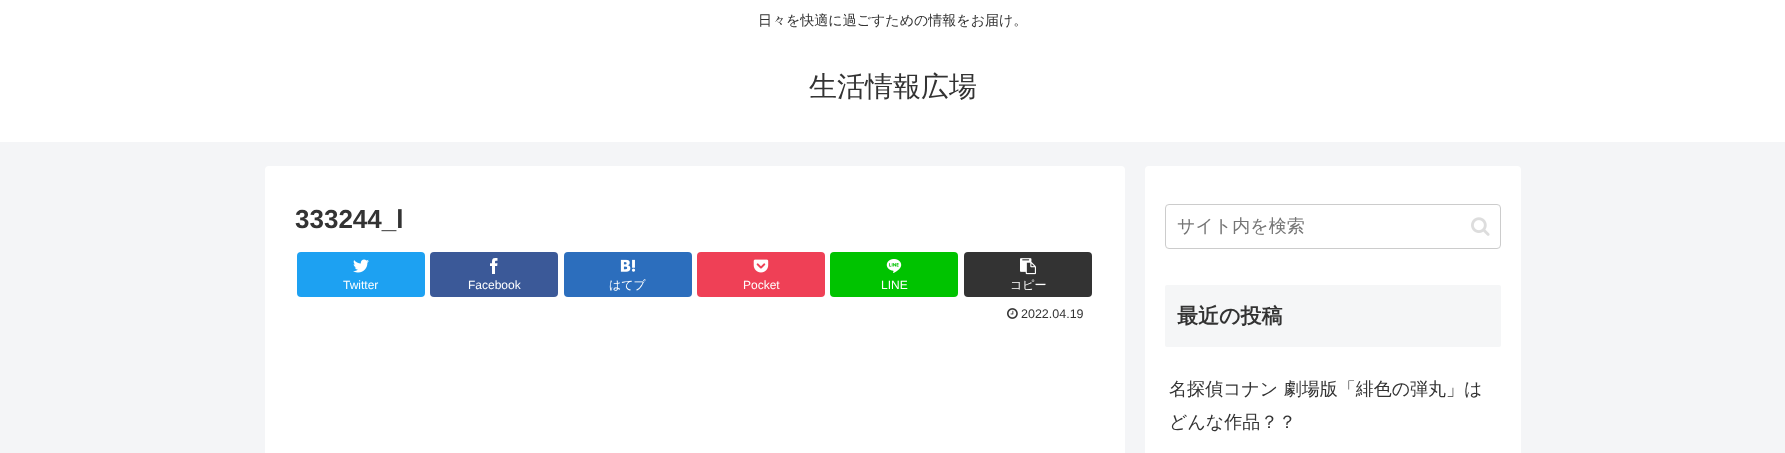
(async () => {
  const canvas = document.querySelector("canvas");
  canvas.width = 1785;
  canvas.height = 453;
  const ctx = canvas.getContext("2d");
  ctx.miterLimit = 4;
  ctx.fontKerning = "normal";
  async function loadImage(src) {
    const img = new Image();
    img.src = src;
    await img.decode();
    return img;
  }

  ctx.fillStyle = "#f4f5f7";
  ctx.fillRect(0, 0, 1785, 453);
  ctx.fillStyle = "#ffffff";
  ctx.fillRect(0, 0, 1785, 142);
  ctx.beginPath();
  ctx.roundRect(265, 166, 860, 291, 4);
  ctx.fill();
  ctx.fillStyle = "#1da1f2";
  ctx.beginPath();
  ctx.roundRect(297, 252, 128, 45, 4);
  ctx.fill();
  ctx.drawImage(await loadImage("img/1.png"), 353, 259, 16, 14);
  ctx.fillStyle = "#3b5998";
  ctx.beginPath();
  ctx.roundRect(430, 252, 128, 45, 4);
  ctx.fill();
  ctx.drawImage(await loadImage("img/2.png"), 490, 258, 8, 16);
  ctx.fillStyle = "#2c6ebd";
  ctx.beginPath();
  ctx.roundRect(564, 252, 128, 45, 4);
  ctx.fill();
  ctx.drawImage(await loadImage("img/3.png"), 620, 259, 16, 13);
  ctx.fillStyle = "#ef4056";
  ctx.beginPath();
  ctx.roundRect(697, 252, 128, 45, 4);
  ctx.fill();
  ctx.drawImage(await loadImage("img/4.png"), 753, 259, 16, 14);
  ctx.fillStyle = "#00c300";
  ctx.beginPath();
  ctx.roundRect(830, 252, 128, 45, 4);
  ctx.fill();
  ctx.drawImage(await loadImage("img/5.png"), 886, 259, 16, 14);
  ctx.fillStyle = "#333333";
  ctx.beginPath();
  ctx.roundRect(964, 252, 128, 45, 4);
  ctx.fill();
  ctx.drawImage(await loadImage("img/6.png"), 1020, 258, 16, 17);
  ctx.drawImage(await loadImage("img/7.png"), 1007, 308, 11, 11);
  ctx.fillStyle = "#ffffff";
  ctx.beginPath();
  ctx.roundRect(1145, 166, 376, 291, 4);
  ctx.fill();
  ctx.beginPath();
  ctx.roundRect(1165.5, 204.5, 335, 44, 3.5);
  ctx.strokeStyle = "#cccccc";
  ctx.stroke();
  ctx.drawImage(await loadImage("img/8.png"), 1471, 217, 19, 19);
  ctx.fillStyle = "#f5f6f7";
  ctx.beginPath();
  ctx.roundRect(1165, 285, 336, 62, 2);
  ctx.fill();
  ctx.font = "500 14px WenQuanYi Zen Hei";
  ctx.fillStyle = "#333333";
  ctx.fillText("日々を快適に過ごすための情報をお届け。", 758, 25);
  ctx.font = "500 28px WenQuanYi Zen Hei";
  ctx.fillText("生活情報広場", 809, 96);
  ctx.font = "bold 26px Liberation Sans";
  ctx.fillText("333244_l", 295, 228);
  ctx.font = "12px Liberation Sans";
  ctx.fillStyle = "#ffffff";
  ctx.fillText("Twitter", 343, 289);
  ctx.fillText("Facebook", 468, 289);
  ctx.font = "500 12px WenQuanYi Zen Hei";
  ctx.fillText("はてブ", 609, 289);
  ctx.font = "12px Liberation Sans";
  ctx.fillText("Pocket", 743, 289);
  ctx.fillText("LINE", 881, 289);
  ctx.font = "500 12px WenQuanYi Zen Hei";
  ctx.fillText("コピー", 1010, 289);
  ctx.font = "12.5px Liberation Sans";
  ctx.fillStyle = "#333333";
  ctx.fillText("2022.04.19", 1021, 318);
  ctx.font = "500 18px WenQuanYi Zen Hei";
  ctx.fillStyle = "#757575";
  ctx.fillText("サイト内を検索", 1177, 232);
  ctx.font = "bold 21px WenQuanYi Zen Hei";
  ctx.fillStyle = "#333333";
  ctx.fillText("最近の投稿", 1177, 323);
  ctx.font = "500 18px WenQuanYi Zen Hei";
  ctx.fillText("名探偵コナン 劇場版「緋色の弾丸」は", 1169, 395);
  ctx.fillText("どんな作品？？", 1169, 428);
})();
